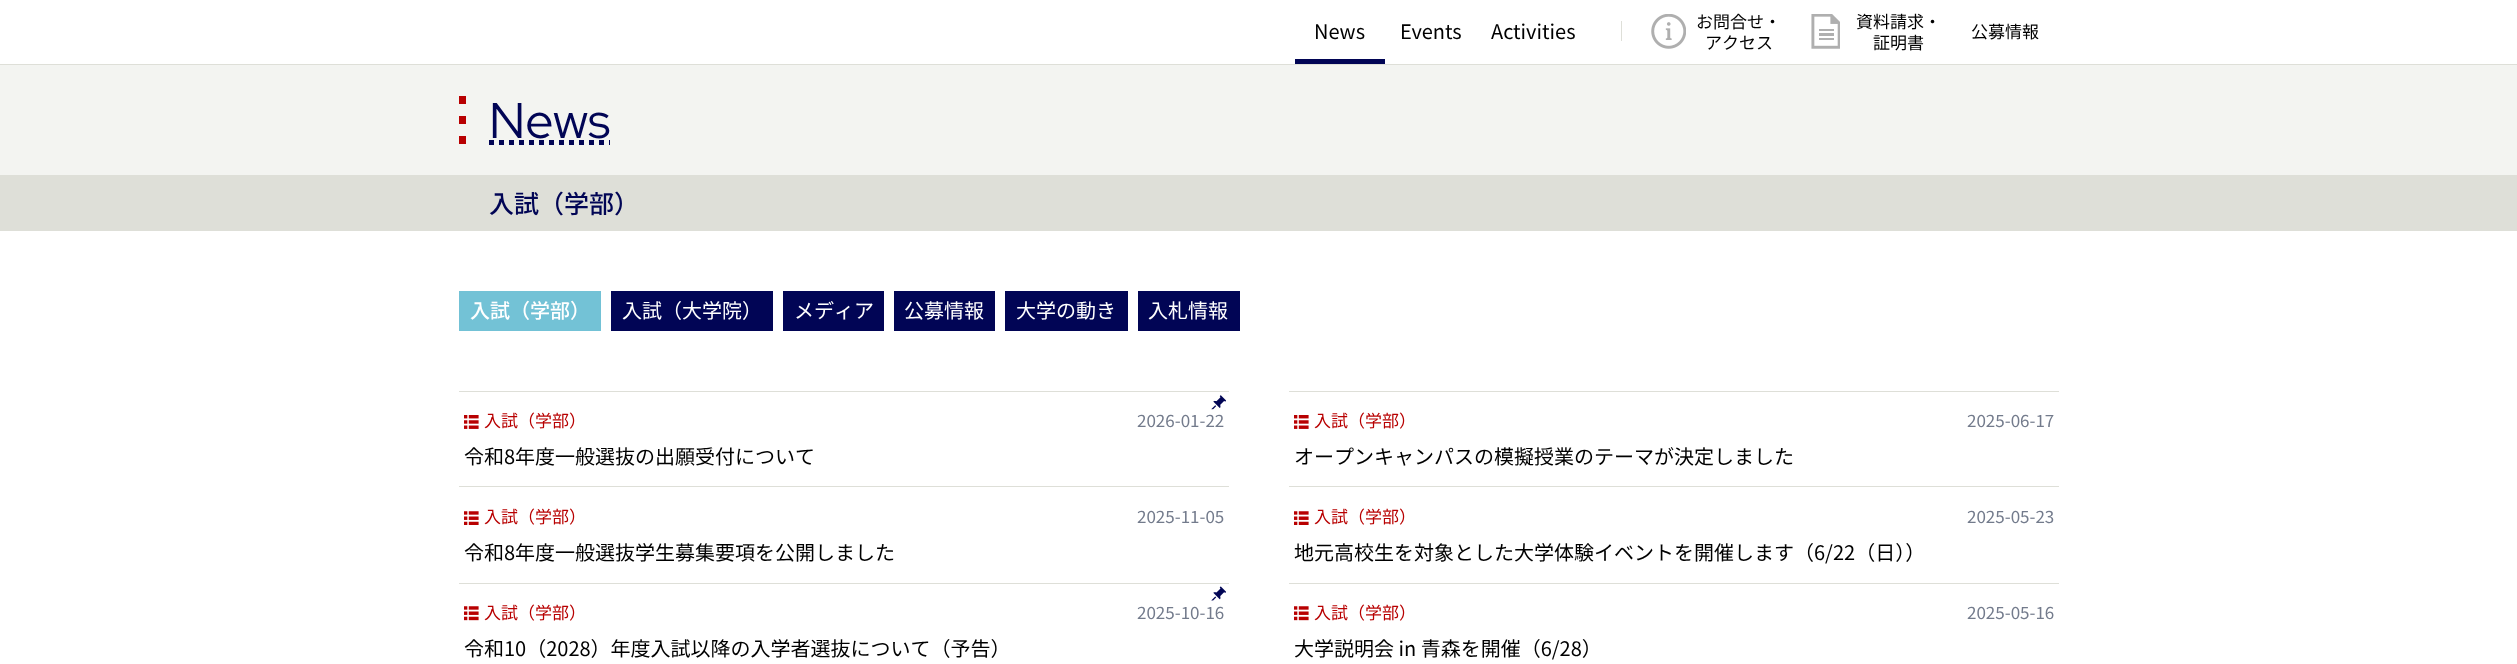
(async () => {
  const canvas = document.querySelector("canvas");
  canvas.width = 2517;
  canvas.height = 664;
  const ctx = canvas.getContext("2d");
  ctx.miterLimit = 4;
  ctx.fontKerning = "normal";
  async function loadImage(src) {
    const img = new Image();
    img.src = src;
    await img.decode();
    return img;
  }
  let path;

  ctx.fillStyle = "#ffffff";
  ctx.fillRect(0, 0, 2517, 664);
  for (const [x, y, w, h, color] of [
    [0, 64, 2517, 1, "#dedfd8"],
    [1295, 59, 90, 5, "#010555"],
    [1621, 21, 1, 20, "#dedfd8"],
  ]) {
    ctx.fillStyle = color;
    ctx.fillRect(x, y, w, h);
  }
  ctx.drawImage(await loadImage("img/1.png"), 1651, 14, 35, 35);
  ctx.drawImage(await loadImage("img/2.png"), 1811, 14, 29, 35);
  for (const [x, y, w, h, color] of [
    [0, 65, 2517, 110, "#f3f4f1"],
    [459, 116, 7, 8, "#b80001"],
    [459, 96, 7, 8, "#b80001"],
  ]) {
    ctx.fillStyle = color;
    ctx.fillRect(x, y, w, h);
  }
  path = new Path2D("M489 142.5H610");
  ctx.strokeStyle = "#010555";
  ctx.lineWidth = 5;
  ctx.setLineDash([5, 5]);
  ctx.stroke(path);
  for (const [x, y, w, h, color] of [
    [459, 136, 7, 8, "#b80001"],
    [2059, 175, 458, 56, "#dedfd8"],
    [0, 175, 2059, 56, "#dedfd8"],
    [459, 291, 142, 40, "#73c2d6"],
    [611, 291, 162, 40, "#010555"],
    [783, 291, 101, 40, "#010555"],
    [894, 291, 101, 40, "#010555"],
    [1005, 291, 123, 40, "#010555"],
    [1138, 291, 102, 40, "#010555"],
    [459, 391, 770, 1, "#dedfd8"],
  ]) {
    ctx.fillStyle = color;
    ctx.fillRect(x, y, w, h);
  }
  ctx.drawImage(await loadImage("img/3.png"), 1211, 395, 15, 15);
  ctx.drawImage(await loadImage("img/4.png"), 464, 415, 15, 14);
  ctx.fillRect(1289, 391, 770, 1);
  ctx.drawImage(await loadImage("img/4.png"), 1294, 415, 15, 14);
  ctx.fillRect(459, 486, 770, 1);
  ctx.drawImage(await loadImage("img/5.png"), 464, 511, 15, 14);
  ctx.fillRect(1289, 486, 770, 1);
  ctx.drawImage(await loadImage("img/5.png"), 1294, 511, 15, 14);
  ctx.fillRect(459, 583, 770, 1);
  ctx.drawImage(await loadImage("img/6.png"), 1211, 586, 15, 15);
  ctx.drawImage(await loadImage("img/7.png"), 464, 606, 15, 15);
  ctx.fillRect(1289, 583, 770, 1);
  ctx.drawImage(await loadImage("img/7.png"), 1294, 606, 15, 15);
  ctx.font = "20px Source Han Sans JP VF";
  ctx.fillStyle = "#000000";
  for (const [text, x, y] of [
    ["News", 1314, 39],
    ["Events", 1400, 39],
    ["Activities", 1491, 39],
  ]) {
    ctx.fillText(text, x, y);
  }
  ctx.font = "17px Source Han Sans JP VF";
  for (const [text, x, y] of [
    ["お問合せ・", 1696, 28],
    ["アクセス", 1705, 49],
    ["資料請求・", 1856, 28],
    ["証明書", 1873, 49],
    ["公募情報", 1971, 38],
  ]) {
    ctx.fillText(text, x, y);
  }
  ctx.font = "50px Red Hat Display";
  ctx.fillStyle = "#010555";
  ctx.fillText("News", 489, 138);
  ctx.font = "500 25px Source Han Sans JP VF";
  ctx.fillText("入試（学部）", 489, 213);
  ctx.font = "500 20px Source Han Sans JP VF";
  ctx.fillStyle = "#ffffff";
  ctx.fillText("入試（学部）", 470, 318);
  ctx.font = "20px Source Han Sans JP VF";
  for (const [text, x, y] of [
    ["入試（大学院）", 622, 318],
    ["メディア", 794, 318],
    ["公募情報", 904, 318],
    ["大学の動き", 1016, 318],
    ["入札情報", 1148, 318],
  ]) {
    ctx.fillText(text, x, y);
  }
  ctx.font = "17px Source Han Sans JP VF";
  ctx.fillStyle = "#b80001";
  ctx.fillText("入試（学部）", 484, 427);
  ctx.fillStyle = "#737b8c";
  ctx.fillText("2026-01-22", 1137, 427);
  ctx.font = "20px Source Han Sans JP VF";
  ctx.fillStyle = "#000000";
  ctx.fillText("令和8年度一般選抜の出願受付について", 464, 464);
  ctx.font = "17px Source Han Sans JP VF";
  ctx.fillStyle = "#b80001";
  ctx.fillText("入試（学部）", 1314, 427);
  ctx.fillStyle = "#737b8c";
  ctx.fillText("2025-06-17", 1967, 427);
  ctx.font = "20px Source Han Sans JP VF";
  ctx.fillStyle = "#000000";
  ctx.fillText("オープンキャンパスの模擬授業のテーマが決定しました", 1294, 464);
  ctx.font = "17px Source Han Sans JP VF";
  ctx.fillStyle = "#b80001";
  ctx.fillText("入試（学部）", 484, 523);
  ctx.fillStyle = "#737b8c";
  ctx.fillText("2025-11-05", 1137, 523);
  ctx.font = "20px Source Han Sans JP VF";
  ctx.fillStyle = "#000000";
  ctx.fillText("令和8年度一般選抜学生募集要項を公開しました", 464, 560);
  ctx.font = "17px Source Han Sans JP VF";
  ctx.fillStyle = "#b80001";
  ctx.fillText("入試（学部）", 1314, 523);
  ctx.fillStyle = "#737b8c";
  ctx.fillText("2025-05-23", 1967, 523);
  ctx.font = "20px Source Han Sans JP VF";
  ctx.fillStyle = "#000000";
  ctx.fillText("地元高校生を対象とした大学体験イベントを開催します（6/22（日））", 1294, 560);
  ctx.font = "17px Source Han Sans JP VF";
  ctx.fillStyle = "#b80001";
  ctx.fillText("入試（学部）", 484, 619);
  ctx.fillStyle = "#737b8c";
  ctx.fillText("2025-10-16", 1137, 619);
  ctx.font = "20px Source Han Sans JP VF";
  ctx.fillStyle = "#000000";
  ctx.fillText("令和10（2028）年度入試以降の入学者選抜について（予告）", 464, 656);
  ctx.font = "17px Source Han Sans JP VF";
  ctx.fillStyle = "#b80001";
  ctx.fillText("入試（学部）", 1314, 619);
  ctx.fillStyle = "#737b8c";
  ctx.fillText("2025-05-16", 1967, 619);
  ctx.font = "20px Source Han Sans JP VF";
  ctx.fillStyle = "#000000";
  ctx.fillText("大学説明会 in 青森を開催（6/28）", 1294, 656);
})();
